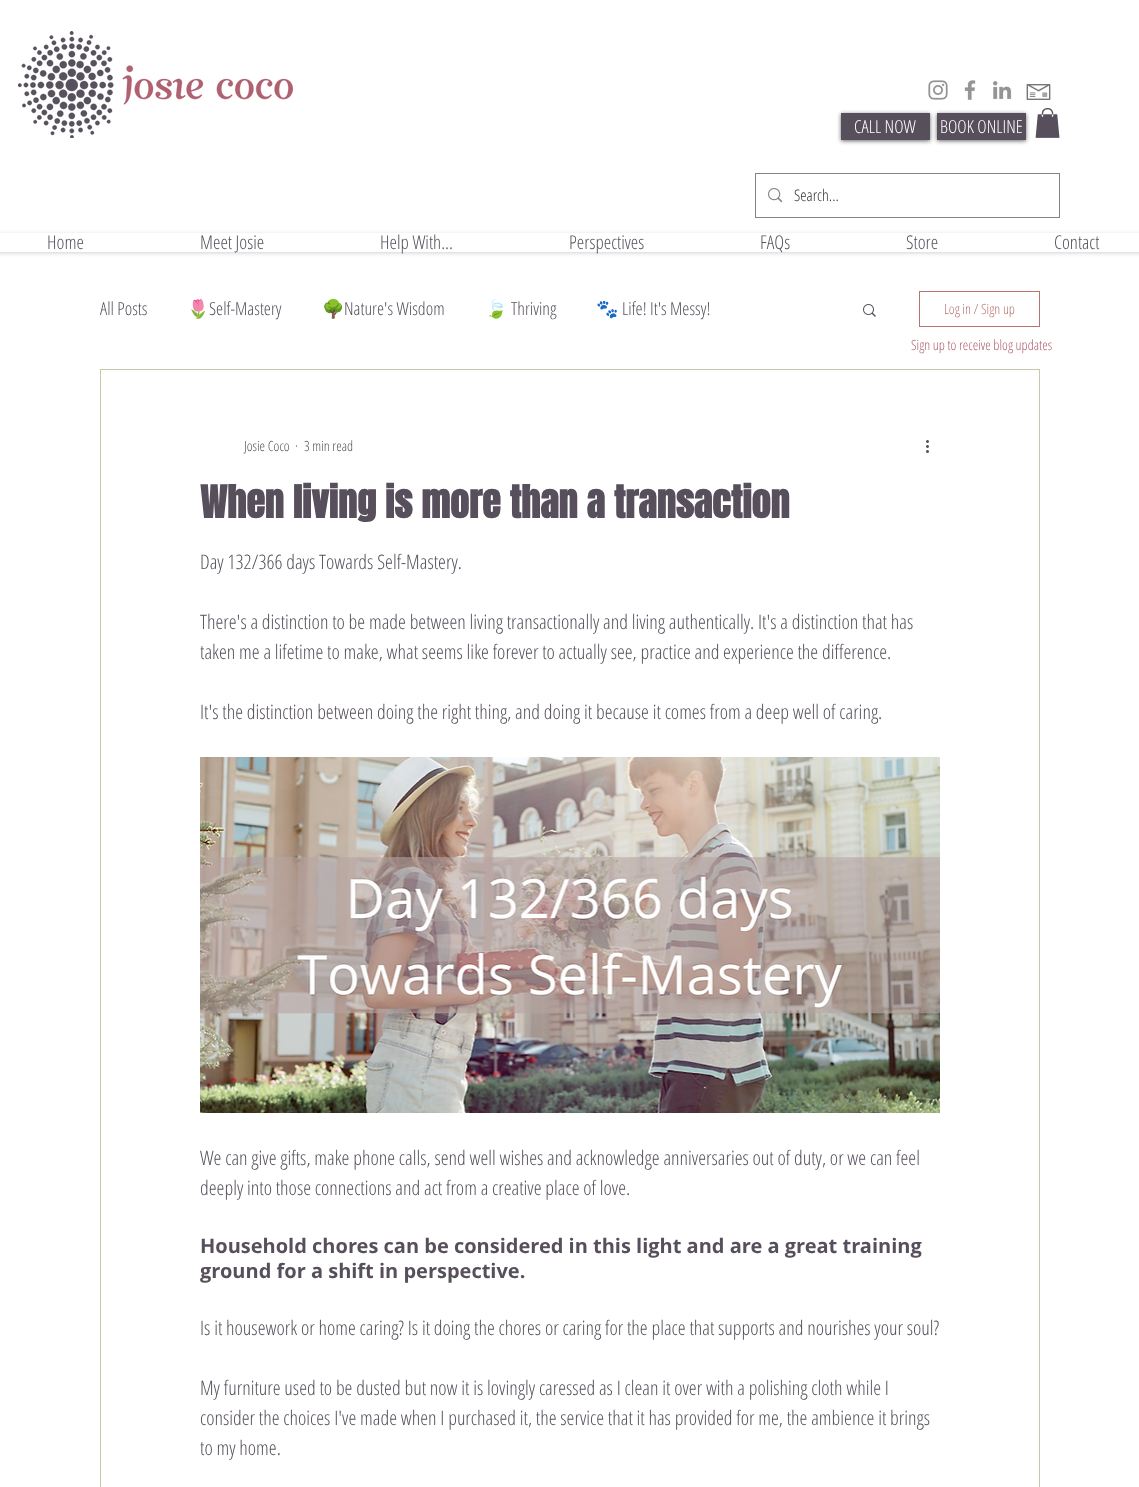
(async () => {
  const canvas = document.querySelector("canvas");
  canvas.width = 1139;
  canvas.height = 1487;
  const ctx = canvas.getContext("2d");
  ctx.miterLimit = 4;
  ctx.fontKerning = "normal";
  async function loadImage(src) {
    const img = new Image();
    img.src = src;
    await img.decode();
    return img;
  }
  let path;

  ctx.fillStyle = "#ffffff";
  ctx.fillRect(0, 0, 1139, 1487);
  ctx.drawImage(await loadImage("img/1.png"), 18, 31, 275, 107);
  ctx.drawImage(await loadImage("img/2.png"), 928, 80, 20, 20);
  ctx.drawImage(await loadImage("img/3.png"), 964, 80, 12, 20);
  ctx.drawImage(await loadImage("img/4.png"), 992, 81, 20, 19);
  ctx.drawImage(await loadImage("img/5.png"), 1026, 84, 25, 16);
  ctx.fillStyle = "rgba(0, 0, 0, 0.6)";
  ctx.filter = "blur(2px)";
  ctx.beginPath();
  ctx.rect(841, 114, 89, 27);
  ctx.fill();
  ctx.filter = "none";
  ctx.fillStyle = "#57505c";
  ctx.fillRect(841, 113, 89, 27);
  ctx.fillStyle = "rgba(0, 0, 0, 0.6)";
  ctx.filter = "blur(2px)";
  ctx.beginPath();
  ctx.rect(937, 114, 89, 27);
  ctx.fill();
  ctx.filter = "none";
  ctx.fillStyle = "#57505c";
  ctx.fillRect(937, 113, 89, 27);
  ctx.drawImage(await loadImage("img/6.png"), 1035, 108, 25, 30);
  ctx.strokeStyle = "#858484";
  ctx.strokeRect(755.5, 173.5, 304, 44);
  ctx.drawImage(await loadImage("img/7.png"), 768, 188, 14, 15);
  ctx.save();
  path = new Path2D("M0 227H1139V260H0ZM-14 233H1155V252H-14Z");
  ctx.clip(path, "evenodd");
  ctx.fillStyle = "rgba(0, 0, 0, 0.18)";
  ctx.filter = "blur(2px)";
  ctx.beginPath();
  ctx.rect(-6, 234, 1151, 19);
  ctx.fill();
  ctx.filter = "none";
  ctx.restore();
  ctx.drawImage(await loadImage("img/8.png"), 863, 304, 13, 13);
  ctx.strokeStyle = "#b97373";
  ctx.strokeRect(919.5, 291.5, 120, 35);
  ctx.strokeStyle = "#c9c6aa";
  ctx.strokeRect(100.5, 369.5, 939, 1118);
  ctx.drawImage(await loadImage("img/9.png"), 926, 440, 3, 13);
  ctx.drawImage(await loadImage("img/10.png"), 200, 757, 740, 356);
  ctx.font = "300 18px Open Sans Condensed";
  ctx.fillStyle = "#ffffff";
  ctx.fillText("CALL NOW", 854, 133);
  ctx.fillText("BOOK ONLINE", 940, 133);
  ctx.font = "300 16px Open Sans Condensed";
  ctx.fillStyle = "#333232";
  ctx.fillText("Search...", 794, 201);
  ctx.font = "300 19px Open Sans Condensed";
  ctx.fillStyle = "#57505c";
  for (const [text, x, y] of [
    ["Home", 47, 249],
    ["Meet Josie", 200, 249],
    ["Help With...", 380, 249],
    ["Perspectives", 569, 249],
    ["FAQs", 760, 249],
    ["Store", 906, 249],
    ["Contact", 1054, 249],
  ]) {
    ctx.fillText(text, x, y);
  }
  ctx.font = "300 18px Open Sans Condensed";
  ctx.fillText("All Posts", 100, 315);
  ctx.font = "18px Noto Color Emoji";
  ctx.fillText("🌷", 187, 315);
  ctx.font = "300 18px Open Sans Condensed";
  ctx.fillText("Self-Mastery", 209, 315);
  ctx.font = "18px Noto Color Emoji";
  ctx.fillText("🌳", 322, 315);
  ctx.font = "300 18px Open Sans Condensed";
  ctx.fillText("Nature's Wisdom", 344, 315);
  ctx.font = "18px Noto Color Emoji";
  ctx.fillText("🍃", 485, 315);
  ctx.font = "300 18px Open Sans Condensed";
  ctx.fillText("Thriving", 511, 315);
  ctx.font = "18px Noto Color Emoji";
  ctx.fillText("🐾", 596, 315);
  ctx.font = "300 18px Open Sans Condensed";
  ctx.fillText("Life! It's Messy!", 622, 315);
  ctx.font = "300 14px Open Sans Condensed";
  ctx.fillStyle = "#b97373";
  ctx.fillText("Log in / Sign up", 944, 314);
  ctx.fillStyle = "#57505c";
  for (const [text, x, y] of [
    ["Josie Coco", 244, 451],
    ["·", 295, 451],
    ["3 min read", 304, 451],
  ]) {
    ctx.fillText(text, x, y);
  }
  ctx.font = "bold 38px Anton";
  ctx.fillText("When living is more than a transaction", 200, 518);
  ctx.font = "300 20px Open Sans Condensed";
  for (const [text, x, y] of [
    ["Day 132/366 days Towards Self-Mastery.", 200, 569],
    ["There's a distinction to be made between living transactionally and living authentically. It's a distinction that has", 200, 629],
    ["taken me a lifetime to make, what seems like forever to actually see, practice and experience the difference.", 200, 659],
    ["It's the distinction between doing the right thing, and doing it because it comes from a deep well of caring.", 200, 719],
    ["We can give gifts, make phone calls, send well wishes and acknowledge anniversaries out of duty, or we can feel", 200, 1165],
    ["deeply into those connections and act from a creative place of love.", 200, 1195],
  ]) {
    ctx.fillText(text, x, y);
  }
  ctx.font = "bold 20px Open Sans";
  ctx.fillText("Household chores can be considered in this light and are a great training", 200, 1253);
  ctx.fillText("ground for a shift in perspective.", 200, 1278);
  ctx.font = "300 20px Open Sans Condensed";
  for (const [text, x, y] of [
    ["Is it housework or home caring? Is it doing the chores or caring for the place that supports and nourishes your soul?", 200, 1335],
    ["My furniture used to be dusted but now it is lovingly caressed as I clean it over with a polishing cloth while I", 200, 1395],
    ["consider the choices I've made when I purchased it, the service that it has provided for me, the ambience it brings", 200, 1425],
    ["to my home.", 200, 1455],
  ]) {
    ctx.fillText(text, x, y);
  }
  ctx.font = "300 14px Open Sans Condensed";
  ctx.fillStyle = "#af6070";
  ctx.fillText("Sign up to receive blog updates", 911, 350);
})();
